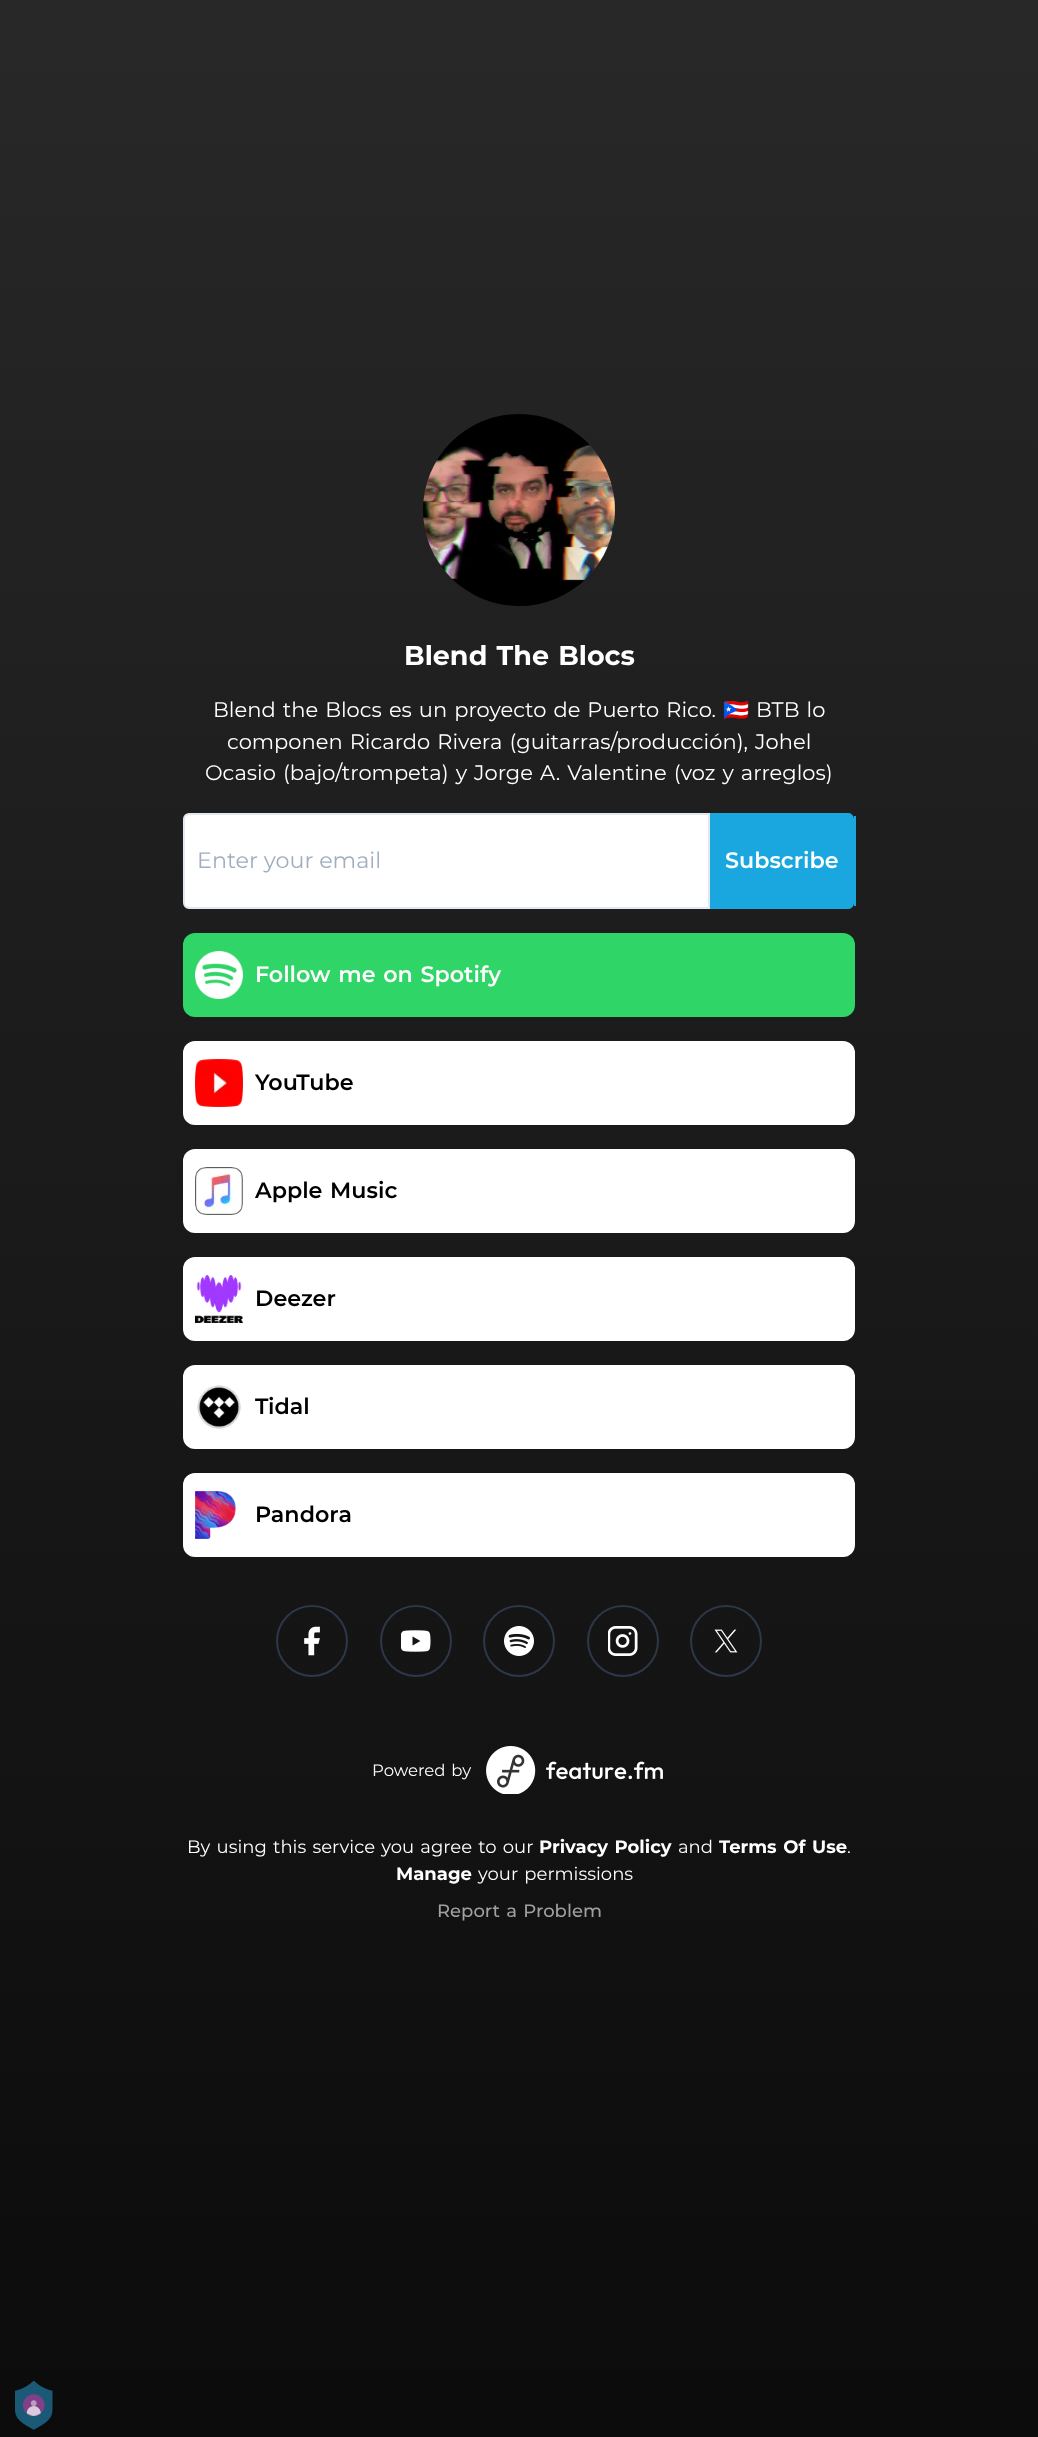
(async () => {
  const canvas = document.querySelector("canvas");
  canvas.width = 1038;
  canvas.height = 2437;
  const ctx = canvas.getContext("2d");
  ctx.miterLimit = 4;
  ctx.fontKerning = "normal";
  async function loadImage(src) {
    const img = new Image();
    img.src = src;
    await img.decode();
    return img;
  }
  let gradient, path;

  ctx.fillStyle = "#ffffff";
  ctx.fillRect(0, 0, 1038, 2437);
  gradient = ctx.createLinearGradient(519, 0, 519, 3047);
  gradient.addColorStop(0, "#282828");
  gradient.addColorStop(1, "#040404");
  ctx.fillStyle = gradient;
  ctx.fillRect(0, 0, 1038, 2437);
  ctx.drawImage(await loadImage("img/1.png"), 423, 414, 192, 192);
  ctx.fillStyle = "#ffffff";
  ctx.beginPath();
  ctx.roundRect(184, 814, 525, 94, [5, 0, 0, 5]);
  ctx.fill();
  ctx.strokeStyle = "#e2e8f0";
  ctx.lineWidth = 2;
  ctx.stroke();
  ctx.fillStyle = "#1aa7e0";
  path = new Path2D("M710 813H849C851 813 854 816 854 819V903C854 906 851 909 849 909H710Z");
  ctx.fill(path);
  ctx.fillRect(854, 816, 2, 90);
  ctx.fillStyle = "#30d567";
  ctx.beginPath();
  ctx.roundRect(183, 933, 672, 84, 12);
  ctx.fill();
  ctx.drawImage(await loadImage("img/2.png"), 195, 951, 48, 48);
  ctx.fillStyle = "#ffffff";
  ctx.beginPath();
  ctx.roundRect(183, 1041, 672, 84, 12);
  ctx.fill();
  ctx.drawImage(await loadImage("img/3.png"), 195, 1059, 48, 48);
  ctx.beginPath();
  ctx.roundRect(183, 1149, 672, 84, 12);
  ctx.fill();
  ctx.drawImage(await loadImage("img/4.png"), 195, 1167, 48, 48);
  ctx.beginPath();
  ctx.roundRect(183, 1257, 672, 84, 12);
  ctx.fill();
  ctx.drawImage(await loadImage("img/5.png"), 195, 1275, 48, 48);
  ctx.beginPath();
  ctx.roundRect(183, 1365, 672, 84, 12);
  ctx.fill();
  ctx.drawImage(await loadImage("img/6.png"), 197, 1385, 44, 44);
  ctx.beginPath();
  ctx.roundRect(183, 1473, 672, 84, 12);
  ctx.fill();
  ctx.drawImage(await loadImage("img/7.png"), 195, 1491, 42, 48);
  ctx.beginPath();
  ctx.arc(312, 1641, 35, 0, Math.PI * 2);
  ctx.strokeStyle = "#2d3748";
  ctx.stroke();
  ctx.drawImage(await loadImage("img/8.png"), 304, 1626, 16, 30);
  ctx.beginPath();
  ctx.arc(416, 1641, 35, 0, Math.PI * 2);
  ctx.stroke();
  ctx.drawImage(await loadImage("img/9.png"), 401, 1630, 30, 22);
  ctx.beginPath();
  ctx.arc(519, 1641, 35, 0, Math.PI * 2);
  ctx.stroke();
  ctx.drawImage(await loadImage("img/10.png"), 504, 1626, 30, 30);
  ctx.beginPath();
  ctx.arc(623, 1641, 35, 0, Math.PI * 2);
  ctx.stroke();
  ctx.drawImage(await loadImage("img/11.png"), 608, 1626, 30, 30);
  ctx.beginPath();
  ctx.arc(726, 1641, 35, 0, Math.PI * 2);
  ctx.stroke();
  ctx.drawImage(await loadImage("img/12.png"), 714, 1629, 24, 24);
  ctx.drawImage(await loadImage("img/13.png"), 486, 1746, 177, 48);
  ctx.drawImage(await loadImage("img/14.png"), 15, 2381, 38, 49);
  ctx.wordSpacing = "1.5px";
  ctx.font = "bold 27px Montserrat";
  ctx.fillText("Blend The Blocs", 404, 665);
  ctx.font = "21px Montserrat";
  ctx.fillText("Blend the Blocs es un proyecto de Puerto Rico.", 213, 717);
  ctx.wordSpacing = "0px";
  ctx.font = "21px Noto Color Emoji";
  ctx.fillText("🇵🇷", 723, 717);
  ctx.wordSpacing = "1.5px";
  ctx.font = "21px Montserrat";
  for (const [text, x, y] of [
    ["BTB lo", 756, 717],
    ["componen Ricardo Rivera (guitarras/producción), Johel", 227, 749],
    ["Ocasio (bajo/trompeta) y Jorge A. Valentine (voz y arreglos)", 205, 780],
  ]) {
    ctx.fillText(text, x, y);
  }
  ctx.wordSpacing = "0px";
  ctx.font = "22.25px Montserrat";
  ctx.fillStyle = "#a0aec0";
  ctx.fillText("Enter your email", 197, 868);
  ctx.font = "600 22.25px Montserrat";
  ctx.fillStyle = "#ffffff";
  ctx.fillText("Subscribe", 725, 868);
  ctx.wordSpacing = "1.5px";
  ctx.fillText("Follow me on Spotify", 255, 982);
  ctx.wordSpacing = "0px";
  ctx.fillStyle = "#000000";
  ctx.fillText("YouTube", 255, 1090);
  ctx.wordSpacing = "1.5px";
  ctx.fillText("Apple Music", 255, 1198);
  ctx.wordSpacing = "0px";
  for (const [text, x, y] of [
    ["Deezer", 255, 1306],
    ["Tidal", 255, 1414],
    ["Pandora", 255, 1522],
  ]) {
    ctx.fillText(text, x, y);
  }
  ctx.wordSpacing = "1.5px";
  ctx.font = "16.5px Montserrat";
  ctx.fillStyle = "#ffffff";
  ctx.fillText("Powered by", 372, 1776);
  ctx.font = "18px Montserrat";
  ctx.fillText("By using this service you agree to our", 187, 1853);
  ctx.font = "bold 18px Montserrat";
  ctx.fillText("Privacy Policy", 539, 1853);
  ctx.wordSpacing = "0px";
  ctx.font = "18px Montserrat";
  ctx.fillText("and", 678, 1853);
  ctx.wordSpacing = "1.5px";
  ctx.font = "bold 18px Montserrat";
  ctx.fillText("Terms Of Use", 719, 1853);
  ctx.wordSpacing = "0px";
  ctx.font = "18px Montserrat";
  ctx.fillText(".", 847, 1853);
  ctx.font = "bold 18px Montserrat";
  ctx.fillText("Manage", 396, 1880);
  ctx.wordSpacing = "1.5px";
  ctx.font = "18px Montserrat";
  ctx.fillText("your permissions", 478, 1880);
  ctx.font = "500 18px Montserrat";
  ctx.fillStyle = "#a0a0a0";
  ctx.fillText("Report a Problem", 437, 1917);
})();
